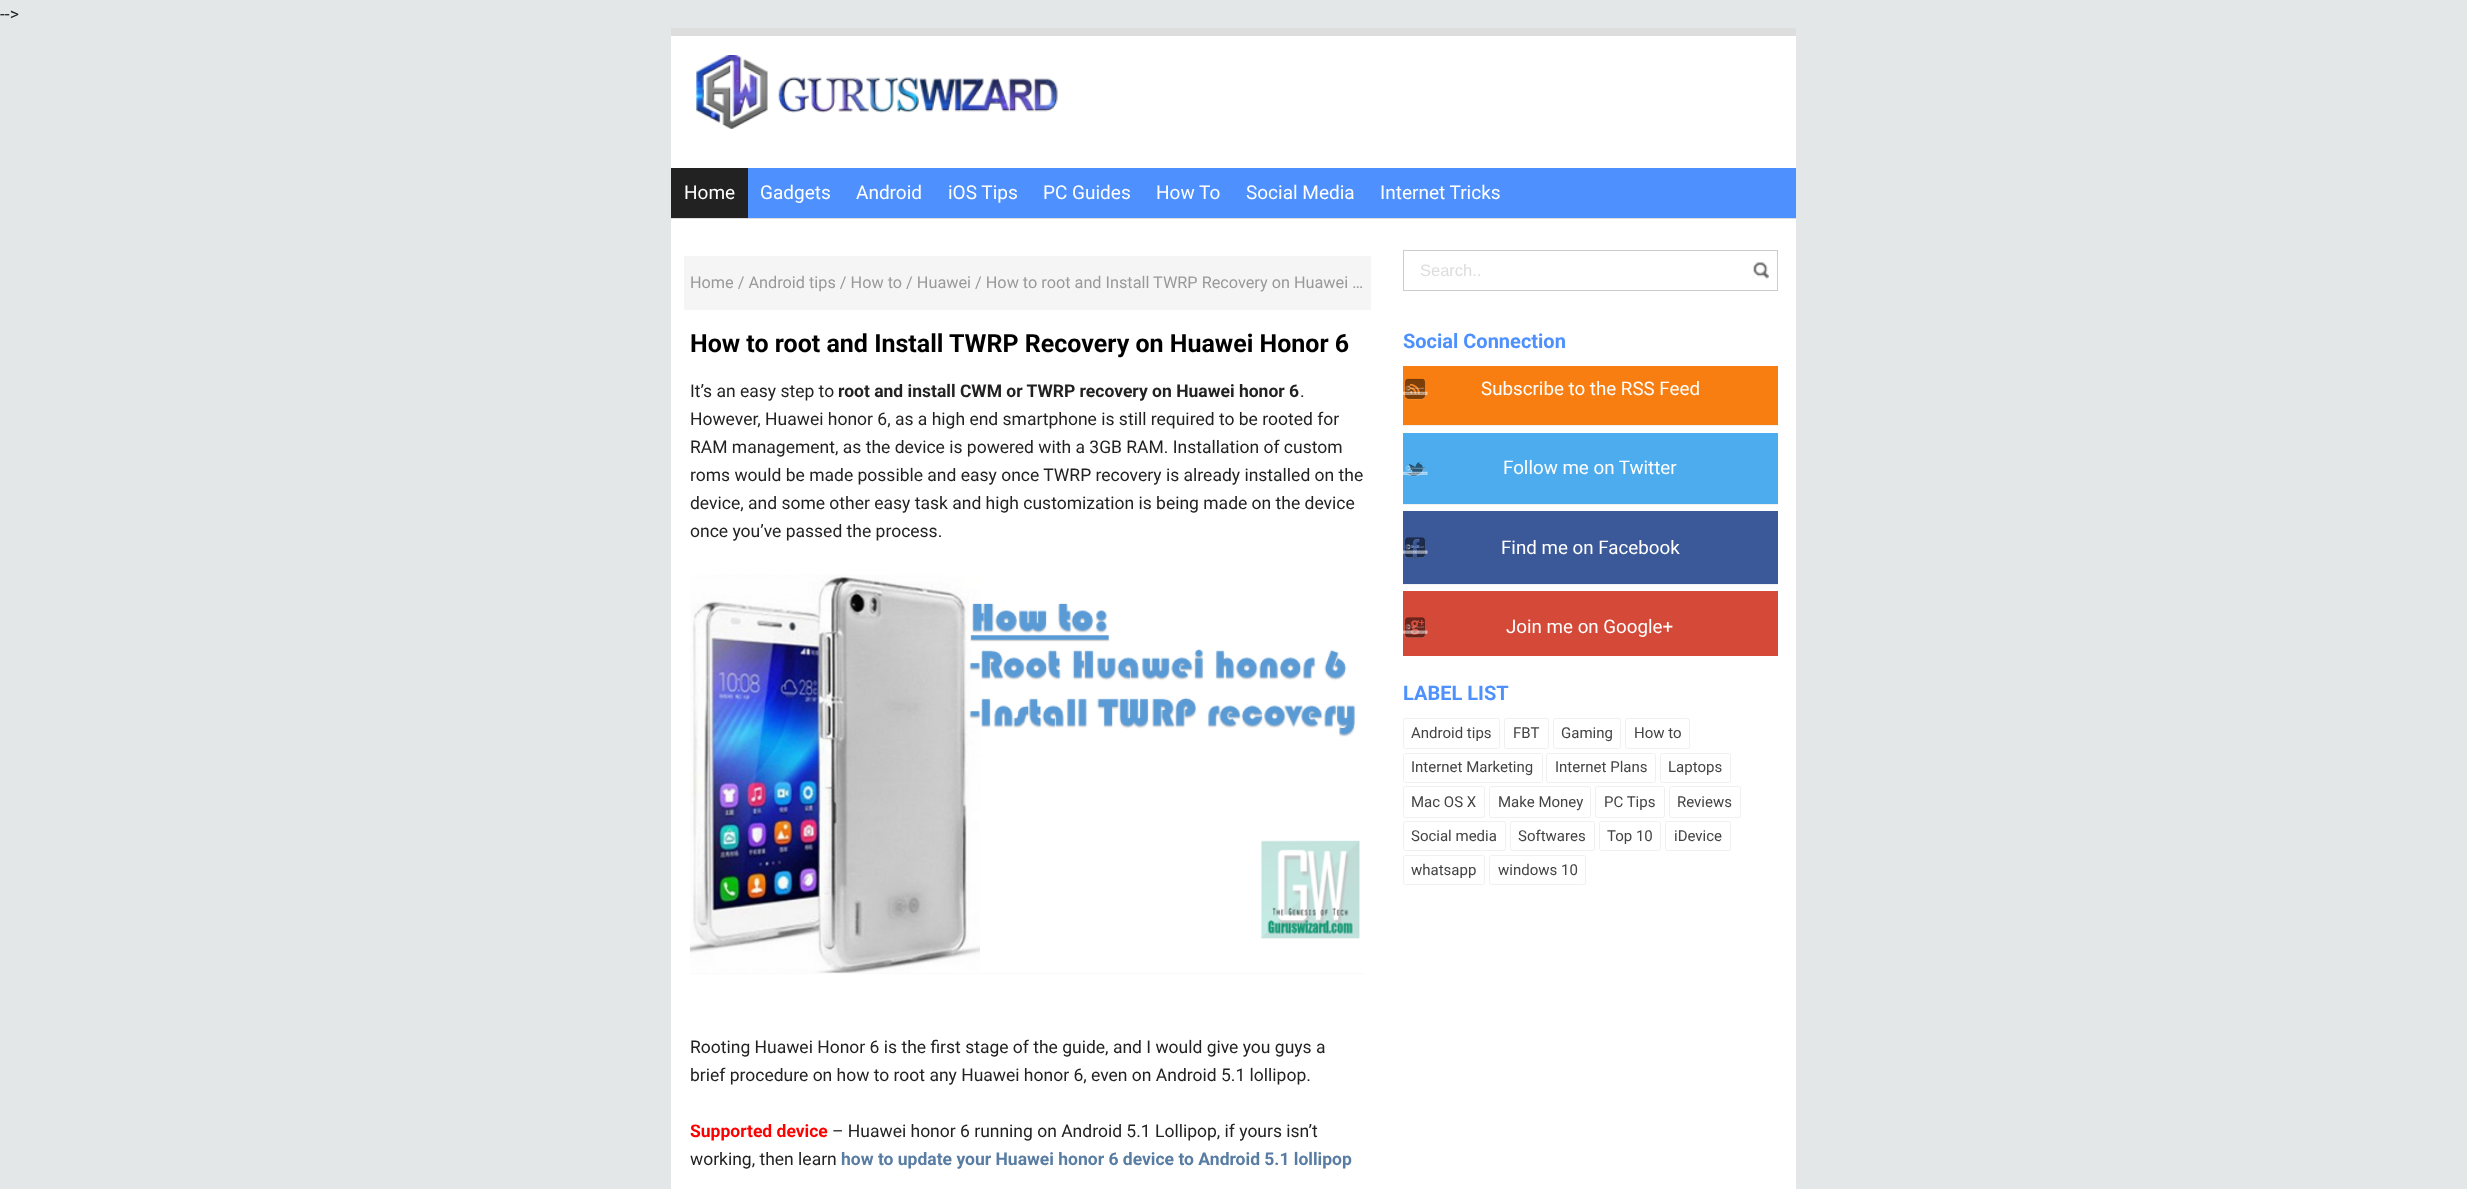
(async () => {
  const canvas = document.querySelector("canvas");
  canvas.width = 2467;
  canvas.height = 1189;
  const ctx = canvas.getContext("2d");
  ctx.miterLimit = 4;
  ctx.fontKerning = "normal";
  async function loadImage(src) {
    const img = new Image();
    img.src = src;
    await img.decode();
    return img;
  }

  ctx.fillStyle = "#e3e7e8";
  ctx.fillRect(0, 0, 2467, 1189);
  ctx.fillStyle = "#ffffff";
  ctx.fillRect(671, 36, 1125, 1153);
  ctx.fillStyle = "#dddddd";
  ctx.fillRect(671, 28, 1125, 8);
  ctx.drawImage(await loadImage("img/1.png"), 696, 55, 362, 74);
  for (const [x, y, w, h, color] of [
    [748, 168, 1048, 50, "#4d90fe"],
    [671, 168, 77, 50, "#222222"],
    [671, 218, 1125, 1, "#dddddd"],
    [684, 256, 687, 54, "#f5f5f5"],
  ]) {
    ctx.fillStyle = color;
    ctx.fillRect(x, y, w, h);
  }
  ctx.drawImage(await loadImage("img/2.png"), 690, 574, 675, 399);
  ctx.fillStyle = "#fafafa";
  ctx.fillRect(690, 973, 675, 1);
  ctx.strokeStyle = "#cccccc";
  ctx.strokeRect(1403.5, 250.5, 374, 40);
  ctx.drawImage(await loadImage("img/3.png"), 1752, 262, 17, 17);
  ctx.fillStyle = "#f0f0f0";
  ctx.fillRect(1403, 425, 375, 1);
  ctx.fillStyle = "#f87e12";
  ctx.fillRect(1403, 366, 375, 59);
  ctx.drawImage(await loadImage("img/4.png"), 1403, 378, 25, 22);
  ctx.fillStyle = "#f0f0f0";
  ctx.fillRect(1403, 504, 375, 1);
  ctx.fillStyle = "#4cacee";
  ctx.fillRect(1403, 433, 375, 71);
  ctx.drawImage(await loadImage("img/5.png"), 1403, 462, 25, 15);
  ctx.fillStyle = "#f0f0f0";
  ctx.fillRect(1403, 584, 375, 1);
  ctx.fillStyle = "#3b5998";
  ctx.fillRect(1403, 511, 375, 73);
  ctx.drawImage(await loadImage("img/6.png"), 1403, 537, 25, 21);
  ctx.fillStyle = "#d44937";
  ctx.fillRect(1403, 591, 375, 65);
  ctx.drawImage(await loadImage("img/7.png"), 1403, 617, 25, 21);
  ctx.beginPath();
  ctx.roundRect(1403.5, 718.5, 96, 30, 2);
  ctx.strokeStyle = "#f0f0f0";
  ctx.stroke();
  ctx.beginPath();
  ctx.roundRect(1504.5, 718.5, 44, 30, 2);
  ctx.stroke();
  ctx.beginPath();
  ctx.roundRect(1553.5, 718.5, 67, 30, 2);
  ctx.stroke();
  ctx.beginPath();
  ctx.roundRect(1625.5, 718.5, 64, 30, 2);
  ctx.stroke();
  ctx.beginPath();
  ctx.roundRect(1403.5, 753.5, 139, 29, 2);
  ctx.stroke();
  ctx.beginPath();
  ctx.roundRect(1546.5, 753.5, 109, 29, 2);
  ctx.stroke();
  ctx.beginPath();
  ctx.roundRect(1660.5, 753.5, 70, 29, 2);
  ctx.stroke();
  ctx.beginPath();
  ctx.roundRect(1403.5, 786.5, 81, 31, 2);
  ctx.stroke();
  ctx.beginPath();
  ctx.roundRect(1489.5, 786.5, 101, 31, 2);
  ctx.stroke();
  ctx.beginPath();
  ctx.roundRect(1595.5, 786.5, 69, 31, 2);
  ctx.stroke();
  ctx.beginPath();
  ctx.roundRect(1669.5, 786.5, 71, 31, 2);
  ctx.stroke();
  ctx.beginPath();
  ctx.roundRect(1403.5, 821.5, 102, 29, 2);
  ctx.stroke();
  ctx.beginPath();
  ctx.roundRect(1510.5, 821.5, 84, 29, 2);
  ctx.stroke();
  ctx.beginPath();
  ctx.roundRect(1599.5, 821.5, 61, 29, 2);
  ctx.stroke();
  ctx.beginPath();
  ctx.roundRect(1665.5, 821.5, 65, 29, 2);
  ctx.stroke();
  ctx.beginPath();
  ctx.roundRect(1403.5, 855.5, 81, 29, 2);
  ctx.stroke();
  ctx.beginPath();
  ctx.roundRect(1489.5, 855.5, 96, 29, 2);
  ctx.stroke();
  ctx.font = "17.5px Roboto";
  ctx.fillStyle = "#222222";
  ctx.fillText("-->", 0, 20);
  ctx.font = "19px Roboto";
  ctx.fillStyle = "#ffffff";
  for (const [text, x, y] of [
    ["Home", 684, 199],
    ["Gadgets", 760, 199],
    ["Android", 856, 199],
    ["iOS Tips", 948, 199],
    ["PC Guides", 1043, 199],
    ["How To", 1156, 199],
    ["Social Media", 1246, 199],
    ["Internet Tricks", 1380, 199],
  ]) {
    ctx.fillText(text, x, y);
  }
  ctx.font = "16.25px Roboto";
  ctx.fillStyle = "#999999";
  ctx.fillText("Home / Android tips / How to / Huawei / How to root and Install TWRP Recovery on Huawei …", 690, 288);
  ctx.font = "bold 25px Roboto";
  ctx.fillStyle = "#000000";
  ctx.fillText("How to root and Install TWRP Recovery on Huawei Honor 6", 690, 352);
  ctx.font = "17.5px Roboto";
  ctx.fillStyle = "#222222";
  ctx.fillText("It’s an easy step to", 690, 397);
  ctx.font = "bold 17.5px Roboto";
  ctx.fillText("root and install CWM or TWRP recovery on Huawei honor 6", 838, 397);
  ctx.font = "17.5px Roboto";
  for (const [text, x, y] of [
    [".", 1300, 397],
    ["However, Huawei honor 6, as a high end smartphone is still required to be rooted for", 690, 425],
    ["RAM management, as the device is powered with a 3GB RAM. Installation of custom", 690, 453],
    ["roms would be made possible and easy once TWRP recovery is already installed on the", 690, 481],
    ["device, and some other easy task and high customization is being made on the device", 690, 509],
    ["once you’ve passed the process.", 690, 537],
    ["Rooting Huawei Honor 6 is the first stage of the guide, and I would give you guys a", 690, 1053],
    ["brief procedure on how to root any Huawei honor 6, even on Android 5.1 lollipop.", 690, 1081],
  ]) {
    ctx.fillText(text, x, y);
  }
  ctx.font = "bold 17.5px Roboto";
  ctx.fillStyle = "#ff0000";
  ctx.fillText("Supported device", 690, 1137);
  ctx.font = "17.5px Roboto";
  ctx.fillStyle = "#222222";
  ctx.fillText("– Huawei honor 6 running on Android 5.1 Lollipop, if yours isn’t", 832, 1137);
  ctx.fillText("working, then learn", 690, 1165);
  ctx.font = "bold 17.5px Roboto";
  ctx.fillStyle = "#587ca2";
  ctx.fillText("how to update your Huawei honor 6 device to Android 5.1 lollipop", 841, 1165);
  ctx.font = "16.5px Liberation Sans";
  ctx.fillStyle = "#dddddd";
  ctx.fillText("Search..", 1420, 276);
  ctx.font = "bold 20px Roboto";
  ctx.fillStyle = "#4d90fe";
  ctx.fillText("Social Connection", 1403, 348);
  ctx.font = "18.75px Roboto";
  ctx.fillStyle = "#ffffff";
  for (const [text, x, y] of [
    ["Subscribe to the RSS Feed", 1481, 395],
    ["Follow me on Twitter", 1503, 474],
    ["Find me on Facebook", 1501, 554],
    ["Join me on Google+", 1506, 633],
  ]) {
    ctx.fillText(text, x, y);
  }
  ctx.font = "bold 20px Roboto";
  ctx.fillStyle = "#4d90fe";
  ctx.fillText("LABEL LIST", 1403, 700);
  ctx.font = "15px Roboto";
  ctx.fillStyle = "#444444";
  for (const [text, x, y] of [
    ["Android tips", 1411, 738],
    ["FBT", 1513, 738],
    ["Gaming", 1561, 738],
    ["How to", 1634, 738],
    ["Internet Marketing", 1411, 772],
    ["Internet Plans", 1555, 772],
    ["Laptops", 1668, 772],
    ["Mac OS X", 1411, 807],
    ["Make Money", 1498, 807],
    ["PC Tips", 1604, 807],
    ["Reviews", 1677, 807],
    ["Social media", 1411, 841],
    ["Softwares", 1518, 841],
    ["Top 10", 1607, 841],
    ["iDevice", 1674, 841],
    ["whatsapp", 1411, 875],
    ["windows 10", 1498, 875],
  ]) {
    ctx.fillText(text, x, y);
  }
})();
